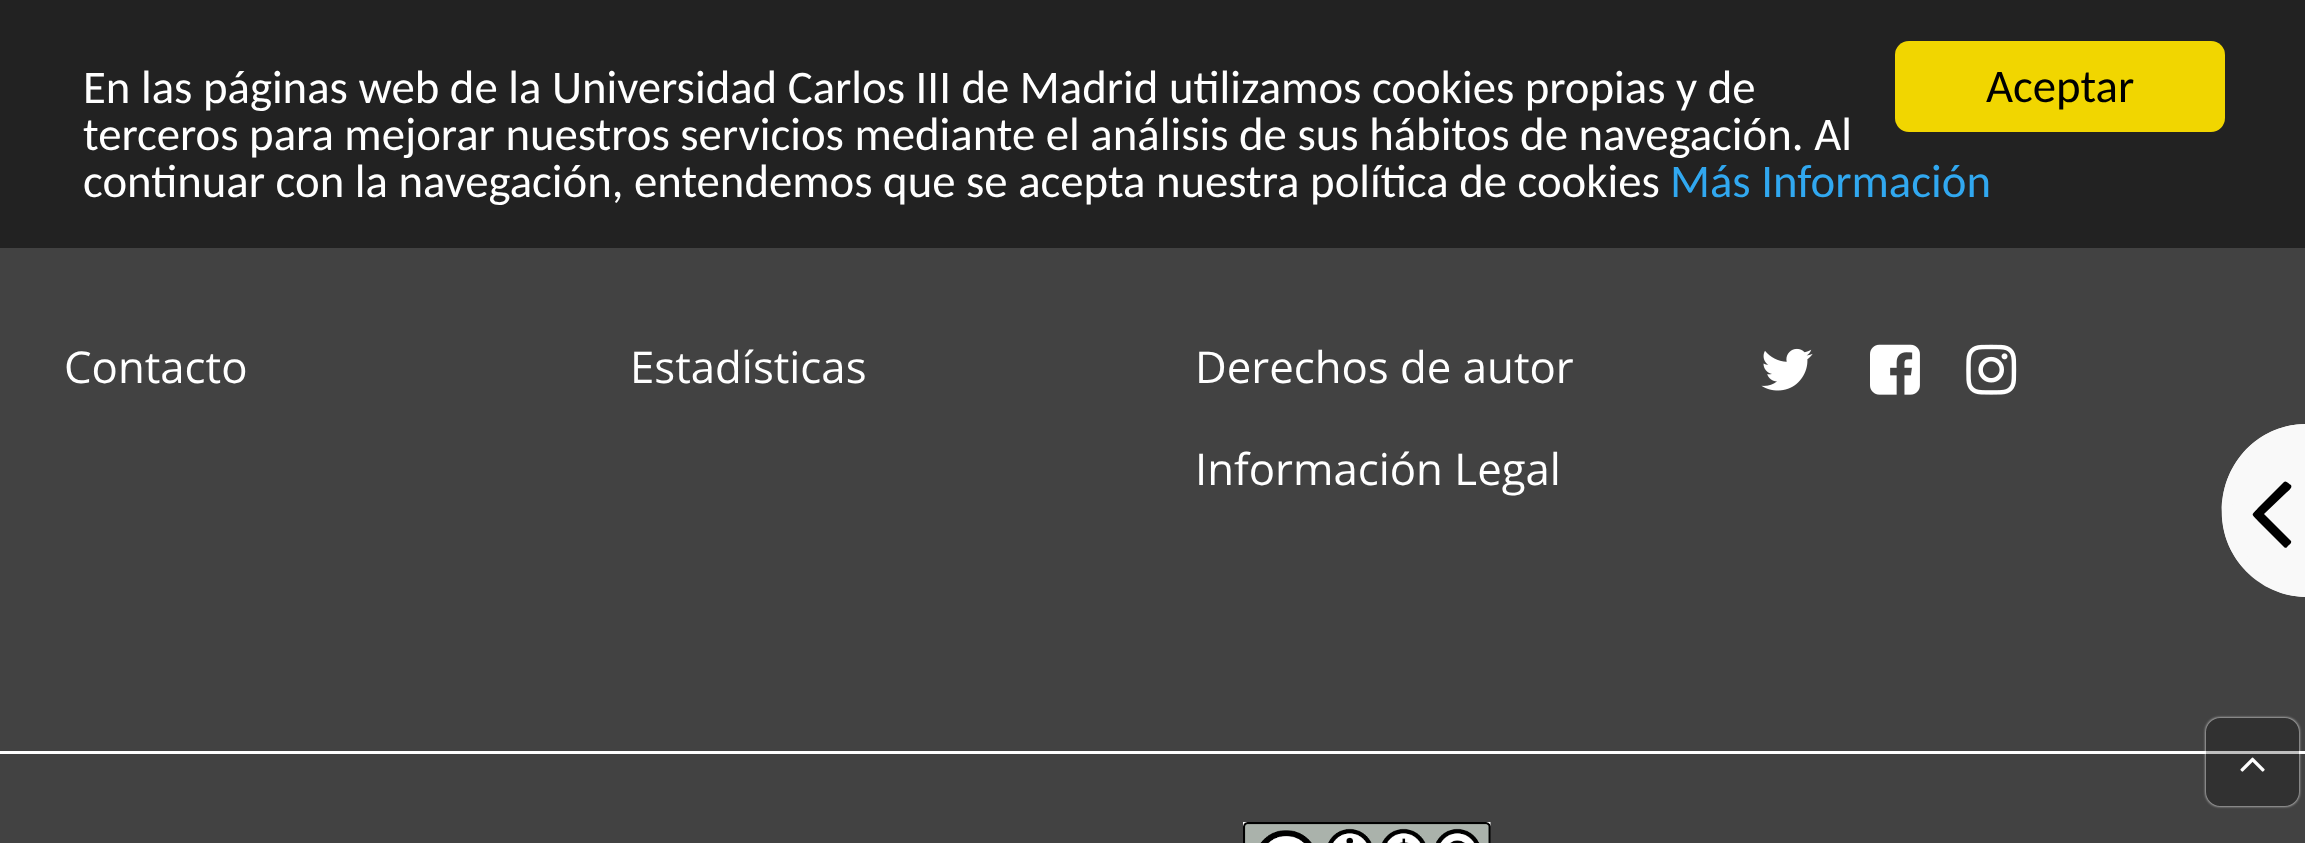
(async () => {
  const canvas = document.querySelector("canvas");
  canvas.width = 2305;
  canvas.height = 843;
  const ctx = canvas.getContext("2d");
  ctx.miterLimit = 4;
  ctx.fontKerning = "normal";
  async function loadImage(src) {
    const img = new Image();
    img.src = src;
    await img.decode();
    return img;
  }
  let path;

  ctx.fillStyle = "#424242";
  ctx.fillRect(0, 0, 2305, 843);
  ctx.fillStyle = "#222222";
  ctx.fillRect(0, 0, 2305, 248);
  ctx.fillStyle = "#f1d600";
  ctx.beginPath();
  ctx.roundRect(1895, 41, 330, 91, 14);
  ctx.fill();
  ctx.drawImage(await loadImage("img/1.png"), 1761, 348, 52, 43);
  ctx.drawImage(await loadImage("img/2.png"), 1870, 344, 50, 51);
  ctx.drawImage(await loadImage("img/3.png"), 1966, 344, 51, 51);
  ctx.fillStyle = "#ffffff";
  ctx.fillRect(0, 751, 2305, 3);
  ctx.drawImage(await loadImage("img/4.png"), 1243, 822, 248, 21);
  ctx.fillStyle = "#f9f9f9";
  path = new Path2D("M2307 424V597C2260 597 2222 559 2222 512V509C2222 462 2260 424 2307 424Z");
  ctx.fill(path);
  path = new Path2D("M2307 424V597C2290 597 2274 592 2260 582C2190 536 2222 424 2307 424ZM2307 434V586C2233 586 2205 488 2266 447C2278 439 2292 434 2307 434Z");
  ctx.fill(path, "evenodd");
  ctx.fillStyle = "#000000";
  path = new Path2D("M2291 485C2293 488 2287 492 2286 493L2264 514L2291 541C2292 543 2289 545 2288 546C2287 547 2286 549 2284 547L2258 521C2251 513 2251 516 2258 508L2284 482C2286 480 2289 484 2291 485Z");
  ctx.fill(path);
  ctx.save();
  path = new Path2D("M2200 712H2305V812H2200ZM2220 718H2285C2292.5 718 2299 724.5 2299 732V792C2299 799.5 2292.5 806 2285 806H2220C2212.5 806 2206 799.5 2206 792V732C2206 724.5 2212.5 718 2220 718Z");
  ctx.clip(path, "evenodd");
  ctx.fillStyle = "#ffffff";
  ctx.filter = "blur(1.5px)";
  ctx.beginPath();
  ctx.roundRect(2206, 718, 93, 88, 14);
  ctx.fill();
  ctx.filter = "none";
  ctx.restore();
  ctx.fillStyle = "rgba(0, 0, 0, 0.25)";
  ctx.beginPath();
  ctx.roundRect(2206, 718, 93, 88, 14);
  ctx.fill();
  ctx.drawImage(await loadImage("img/5.png"), 2240, 757, 25, 15);
  ctx.font = "46.75px Carlito";
  ctx.fillStyle = "#ffffff";
  for (const [text, x, y] of [
    ["En las páginas web de la Universidad Carlos III de Madrid utilizamos cookies propias y de", 83, 103],
    ["terceros para mejorar nuestros servicios mediante el análisis de sus hábitos de navegación. Al", 83, 150],
    ["continuar con la navegación, entendemos que se acepta nuestra política de cookies", 83, 197],
  ]) {
    ctx.fillText(text, x, y);
  }
  ctx.fillStyle = "#31a8f0";
  ctx.fillText("Más Información", 1670, 197);
  ctx.fillStyle = "#000000";
  ctx.fillText("Aceptar", 1986, 102);
  ctx.font = "43.75px Open Sans";
  ctx.fillStyle = "#ffffff";
  for (const [text, x, y] of [
    ["Contacto", 64, 383],
    ["Estadísticas", 630, 383],
    ["Derechos de autor", 1195, 383],
    ["Información Legal", 1195, 485],
  ]) {
    ctx.fillText(text, x, y);
  }
})();
